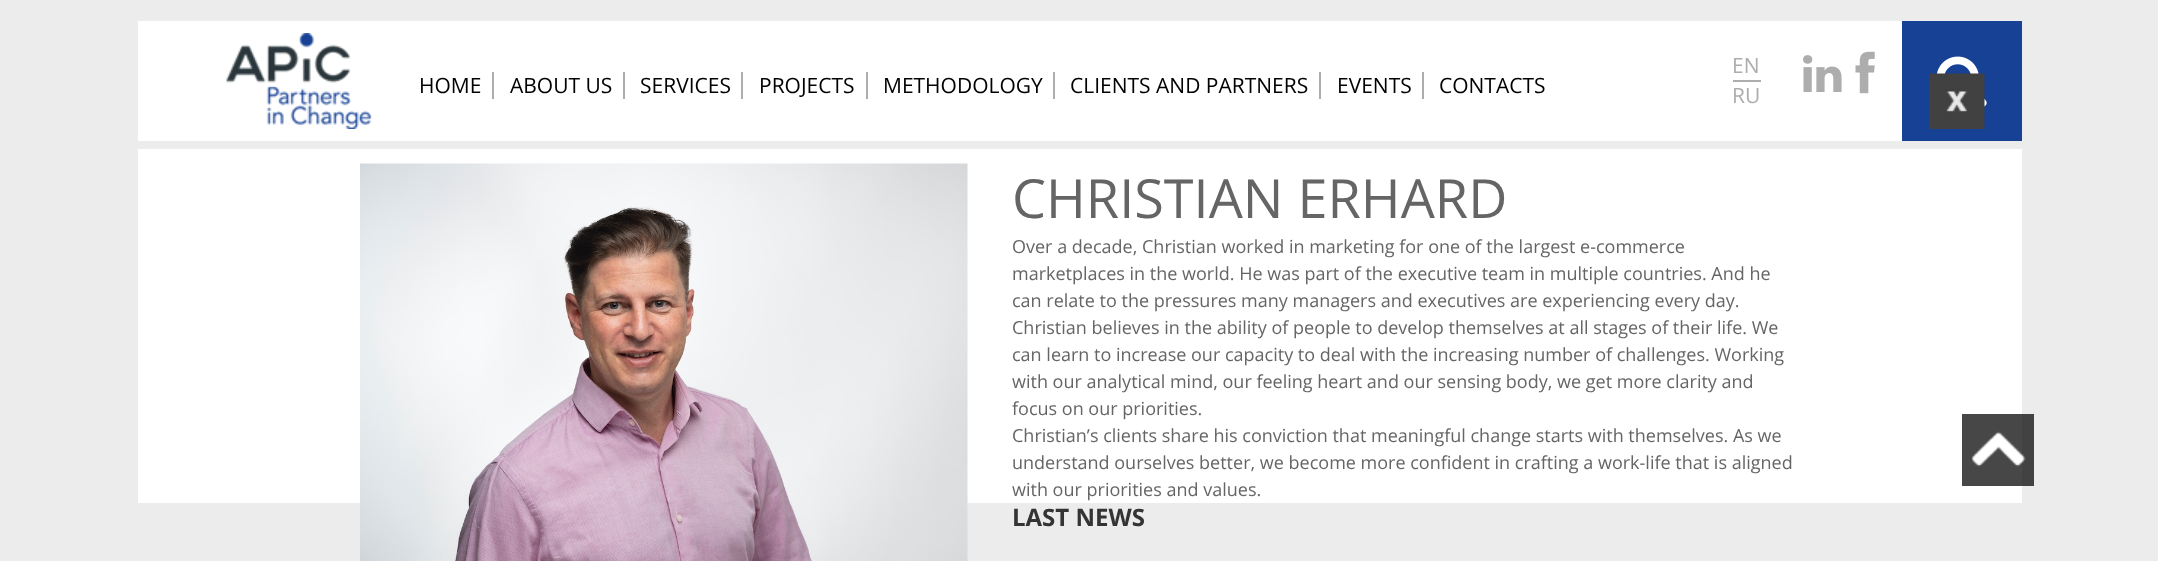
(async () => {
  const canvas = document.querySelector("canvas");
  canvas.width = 2158;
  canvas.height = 561;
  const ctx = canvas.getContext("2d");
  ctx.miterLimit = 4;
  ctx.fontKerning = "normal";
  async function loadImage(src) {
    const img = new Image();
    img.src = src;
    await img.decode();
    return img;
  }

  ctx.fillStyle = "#ececec";
  ctx.fillRect(0, 0, 2158, 561);
  ctx.fillStyle = "#ffffff";
  ctx.fillRect(138, 21, 1884, 482);
  ctx.fillStyle = "#ececec";
  ctx.fillRect(138, 141, 1884, 8);
  ctx.drawImage(await loadImage("img/1.png"), 226, 33, 146, 96);
  for (const [x, y, w, h, color] of [
    [492, 72, 2, 27, "#adadad"],
    [623, 72, 2, 27, "#adadad"],
    [741, 72, 2, 27, "#adadad"],
    [866, 72, 2, 27, "#adadad"],
    [1053, 72, 2, 27, "#adadad"],
    [1319, 72, 2, 27, "#adadad"],
    [1422, 72, 2, 27, "#adadad"],
    [1733, 80, 28, 2, "#adadad"],
  ]) {
    ctx.fillStyle = color;
    ctx.fillRect(x, y, w, h);
  }
  ctx.drawImage(await loadImage("img/2.png"), 1803, 55, 39, 37);
  ctx.drawImage(await loadImage("img/3.png"), 1855, 51, 20, 43);
  ctx.fillStyle = "#164194";
  ctx.fillRect(1902, 21, 120, 120);
  ctx.drawImage(await loadImage("img/4.png"), 1936, 56, 51, 51);
  ctx.drawImage(await loadImage("img/5.png"), 1929, 73, 56, 56);
  ctx.drawImage(await loadImage("img/6.png"), 360, 163, 608, 398);
  ctx.drawImage(await loadImage("img/7.png"), 1962, 414, 72, 72);
  ctx.font = "21px Open Sans";
  ctx.fillStyle = "#000000";
  for (const [text, x, y] of [
    ["HOME", 419, 93],
    ["ABOUT US", 510, 93],
    ["SERVICES", 640, 93],
    ["PROJECTS", 759, 93],
    ["METHODOLOGY", 883, 93],
    ["CLIENTS AND PARTNERS", 1070, 93],
    ["EVENTS", 1337, 93],
    ["CONTACTS", 1439, 93],
  ]) {
    ctx.fillText(text, x, y);
  }
  ctx.fillStyle = "#adadad";
  ctx.fillText("EN", 1732, 73);
  ctx.fillText("RU", 1732, 103);
  ctx.font = "54px Open Sans";
  ctx.fillStyle = "#656565";
  ctx.fillText("CHRISTIAN ERHARD", 1012, 218);
  ctx.font = "18px Open Sans";
  for (const [text, x, y] of [
    ["Over a decade, Christian worked in marketing for one of the largest e-commerce", 1012, 253],
    ["marketplaces in the world. He was part of the executive team in multiple countries. And he", 1012, 280],
    ["can relate to the pressures many managers and executives are experiencing every day.", 1012, 307],
    ["Christian believes in the ability of people to develop themselves at all stages of their life. We", 1012, 334],
    ["can learn to increase our capacity to deal with the increasing number of challenges. Working", 1012, 361],
    ["with our analytical mind, our feeling heart and our sensing body, we get more clarity and", 1012, 388],
    ["focus on our priorities.", 1012, 415],
    ["Christian’s clients share his conviction that meaningful change starts with themselves. As we", 1012, 442],
    ["understand ourselves better, we become more confident in crafting a work-life that is aligned", 1012, 469],
    ["with our priorities and values.", 1012, 496],
  ]) {
    ctx.fillText(text, x, y);
  }
  ctx.font = "bold 24px Open Sans";
  ctx.fillStyle = "#343434";
  ctx.fillText("LAST NEWS", 1012, 526);
})();
